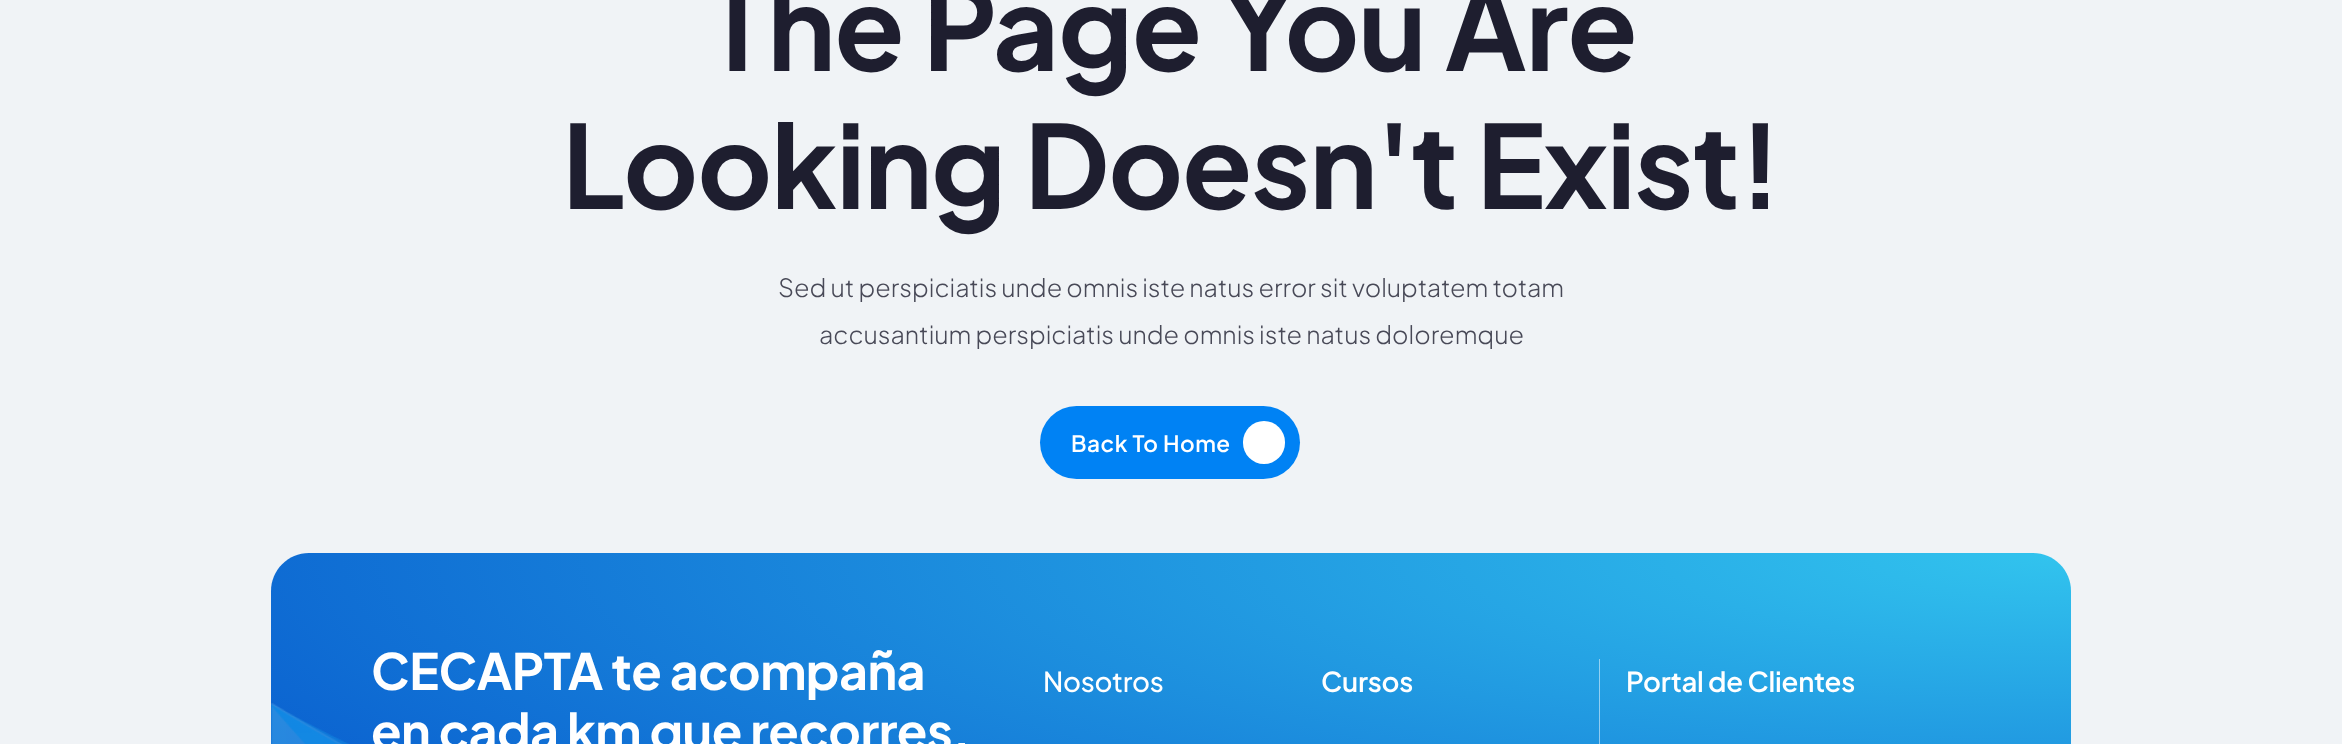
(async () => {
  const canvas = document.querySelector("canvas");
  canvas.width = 2342;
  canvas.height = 744;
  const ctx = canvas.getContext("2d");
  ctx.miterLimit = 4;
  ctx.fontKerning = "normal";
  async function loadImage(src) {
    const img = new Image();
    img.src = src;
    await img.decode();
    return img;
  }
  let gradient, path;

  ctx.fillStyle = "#f0f3f6";
  ctx.fillRect(0, 0, 2342, 744);
  ctx.fillStyle = "#0082f4";
  ctx.beginPath();
  ctx.roundRect(1040, 406, 260, 73, 36.5);
  ctx.fill();
  ctx.fillStyle = "#ffffff";
  ctx.beginPath();
  ctx.roundRect(1243, 421, 42, 43, 21);
  ctx.fill();
  gradient = ctx.createRadialGradient(2071, 2435.88, 0, 2071, 2435.88, 2546);
  gradient.addColorStop(0, "#32c4ee");
  gradient.addColorStop(1, "#0047c8");
  ctx.fillStyle = gradient;
  path = new Path2D("M309 553H2033C2054 553 2071 570 2071 591V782H271V591C271 570 288 553 309 553Z");
  ctx.save();
  ctx.clip(path);
  ctx.scale(1, 578 / 2546);
  ctx.fillRect(0, 0, 2342, 3278);
  ctx.restore();
  gradient = ctx.createRadialGradient(2071, 2435.88, 0, 2071, 2435.88, 2546);
  gradient.addColorStop(0, "#99e2f7");
  gradient.addColorStop(1, "#80a3e4");
  ctx.fillStyle = gradient;
  ctx.beginPath();
  ctx.rect(1599, 659, 1, 85);
  ctx.save();
  ctx.clip();
  ctx.scale(1, 578 / 2546);
  ctx.fillRect(0, 0, 2342, 3278);
  ctx.restore();
  ctx.drawImage(await loadImage("img/1.png"), 271, 703, 78, 41);
  ctx.letterSpacing = "-1.15px";
  ctx.font = "bold 115px Plus Jakarta Sans";
  ctx.fillStyle = "#1e1e2f";
  ctx.fillText("The Page You Are", 706, 71);
  ctx.fillText("Looking Doesn't Exist!", 562, 209);
  ctx.letterSpacing = "0px";
  ctx.font = "300 25px Plus Jakarta Sans";
  ctx.fillStyle = "#484957";
  ctx.fillText("Sed ut perspiciatis unde omnis iste natus error sit voluptatem totam", 778, 297);
  ctx.fillText("accusantium perspiciatis unde omnis iste natus doloremque", 819, 344);
  ctx.letterSpacing = "0.5px";
  ctx.font = "600 22.5px Plus Jakarta Sans";
  ctx.fillStyle = "#ffffff";
  ctx.fillText("Back To Home", 1071, 452);
  ctx.letterSpacing = "-0.5px";
  ctx.font = "bold 50px Plus Jakarta Sans";
  ctx.fillText("CECAPTA te acompaña", 371, 690);
  ctx.fillText("en cada km que recorres.", 371, 750);
  ctx.letterSpacing = "-0.25px";
  ctx.font = "500 27.5px Plus Jakarta Sans";
  ctx.fillText("Nosotros", 1043, 692);
  ctx.font = "600 27.5px Plus Jakarta Sans";
  ctx.fillText("Cursos", 1321, 692);
  ctx.fillText("Portal de Clientes", 1626, 692);
})();
